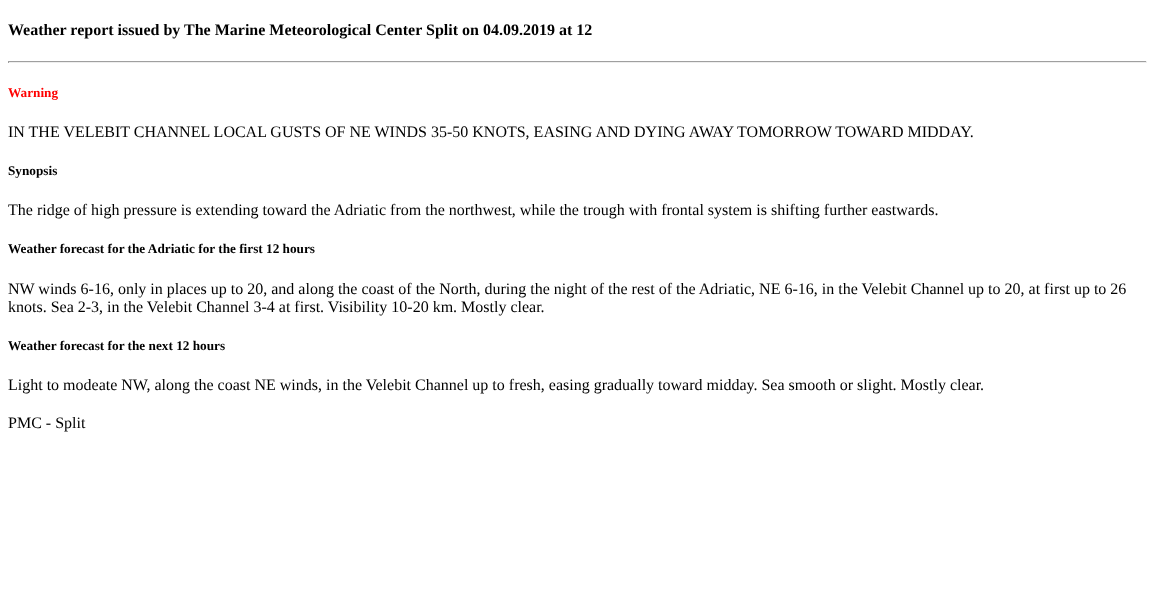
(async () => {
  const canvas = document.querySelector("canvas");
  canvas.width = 1155;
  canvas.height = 612;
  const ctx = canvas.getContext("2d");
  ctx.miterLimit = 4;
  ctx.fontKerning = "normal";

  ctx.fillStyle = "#ffffff";
  ctx.fillRect(0, 0, 1155, 612);
  for (const [x, y, w, h, color] of [
    [8, 61, 1139, 1, "#9f9f9f"],
    [1146, 61, 1, 2, "#eeeeee"],
    [8, 62, 1139, 1, "#eeeeee"],
    [8, 61, 1, 2, "#9f9f9f"],
  ]) {
    ctx.fillStyle = color;
    ctx.fillRect(x, y, w, h);
  }
  ctx.font = "bold 16px Liberation Serif";
  ctx.fillStyle = "#000000";
  ctx.fillText("Weather report issued by The Marine Meteorological Center Split on 04.09.2019 at 12", 8, 35);
  ctx.font = "bold 13.25px Liberation Serif";
  ctx.fillStyle = "#ff0000";
  ctx.fillText("Warning", 8, 97);
  ctx.font = "16px Liberation Serif";
  ctx.fillStyle = "#000000";
  ctx.fillText("IN THE VELEBIT CHANNEL LOCAL GUSTS OF NE WINDS 35-50 KNOTS, EASING AND DYING AWAY TOMORROW TOWARD MIDDAY.", 8, 137);
  ctx.font = "bold 13.25px Liberation Serif";
  ctx.fillText("Synopsis", 8, 175);
  ctx.font = "16px Liberation Serif";
  ctx.fillText("The ridge of high pressure is extending toward the Adriatic from the northwest, while the trough with frontal system is shifting further eastwards.", 8, 215);
  ctx.font = "bold 13.25px Liberation Serif";
  ctx.fillText("Weather forecast for the Adriatic for the first 12 hours", 8, 253);
  ctx.font = "16px Liberation Serif";
  ctx.fillText("NW winds 6-16, only in places up to 20, and along the coast of the North, during the night of the rest of the Adriatic, NE 6-16, in the Velebit Channel up to 20, at first up to 26", 8, 294);
  ctx.fillText("knots. Sea 2-3, in the Velebit Channel 3-4 at first. Visibility 10-20 km. Mostly clear.", 8, 312);
  ctx.font = "bold 13.25px Liberation Serif";
  ctx.fillText("Weather forecast for the next 12 hours", 8, 350);
  ctx.font = "16px Liberation Serif";
  ctx.fillText("Light to modeate NW, along the coast NE winds, in the Velebit Channel up to fresh, easing gradually toward midday. Sea smooth or slight. Mostly clear.", 8, 390);
  ctx.fillText("PMC - Split", 8, 428);
})();
